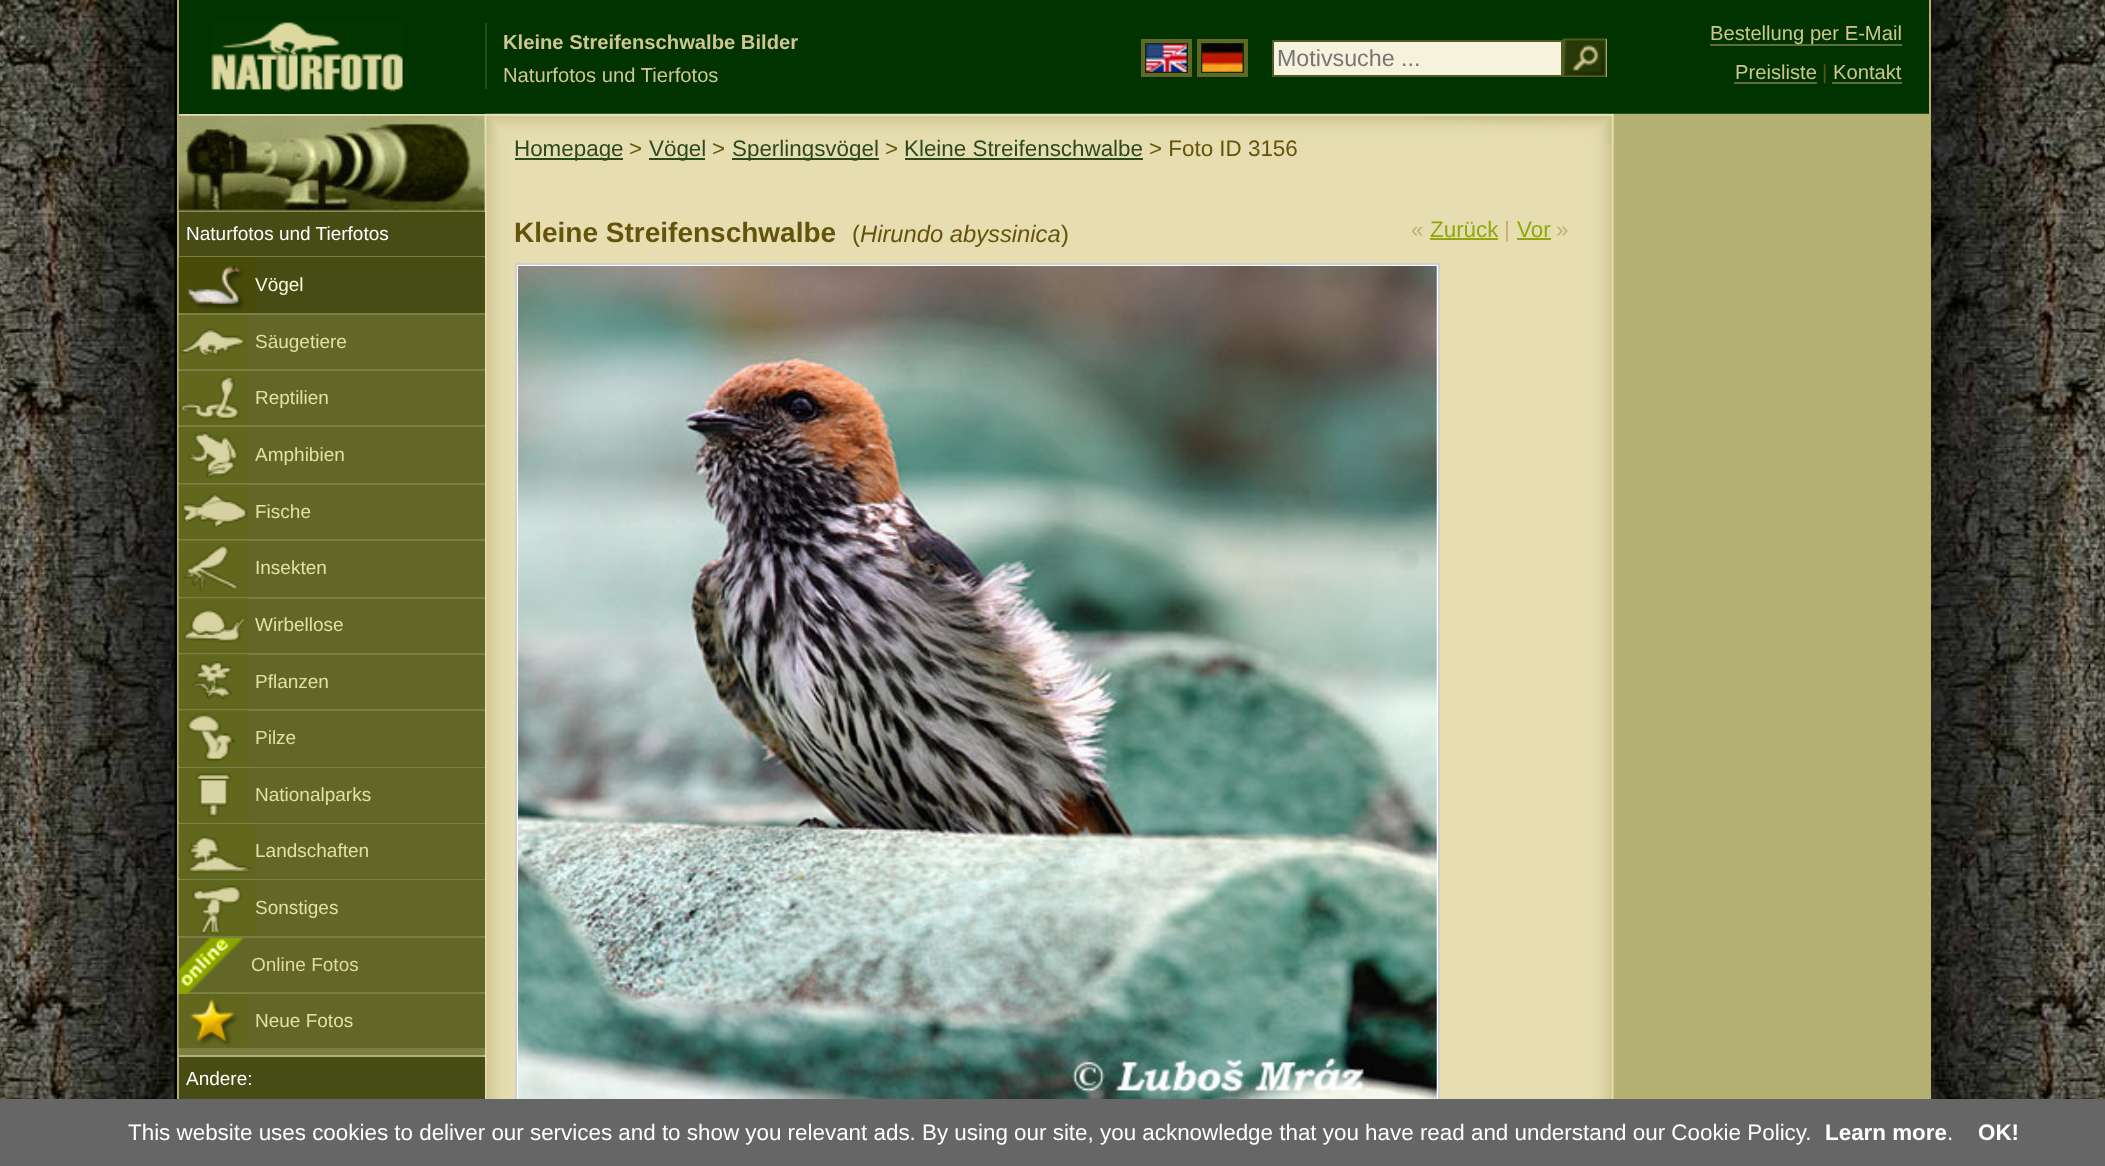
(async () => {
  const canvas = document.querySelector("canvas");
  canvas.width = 2105;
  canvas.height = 1166;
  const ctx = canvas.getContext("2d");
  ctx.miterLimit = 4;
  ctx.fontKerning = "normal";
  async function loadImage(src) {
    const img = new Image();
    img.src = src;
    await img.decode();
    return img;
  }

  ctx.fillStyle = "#ffffff";
  ctx.fillRect(0, 0, 2105, 1166);
  ctx.drawImage(await loadImage("img/1.png"), 0, 0, 2105, 1099);
  ctx.drawImage(await loadImage("img/2.png"), 179, 116, 306, 941);
  for (const [x, y, w, h, color] of [
    [1929, 0, 2, 1099, "#b5b06c"],
    [177, 0, 2, 1099, "#b5b06c"],
    [179, 0, 1750, 114, "#013300"],
    [179, 114, 306, 2, "#e6deb0"],
  ]) {
    ctx.fillStyle = color;
    ctx.fillRect(x, y, w, h);
  }
  ctx.drawImage(await loadImage("img/3.png"), 484, 113, 1445, 986);
  for (const [x, y, w, h, color] of [
    [1928, 114, 1, 985, "#b5b172"],
    [1710, 44, 192, 2, "#5f6c3b"],
    [1734, 82, 83, 2, "#5f6c3b"],
    [1832, 82, 70, 2, "#5f6c3b"],
    [179, 1057, 306, 42, "#474c14"],
  ]) {
    ctx.fillStyle = color;
    ctx.fillRect(x, y, w, h);
  }
  ctx.drawImage(await loadImage("img/6.png"), 178, 115, 307, 97);
  ctx.drawImage(await loadImage("img/4.png"), 484, 115, 1130, 29);
  for (const [x, y, w, h, color] of [
    [485, 114, 1129, 2, "#e3e1b1"],
    [515, 158, 108, 2, "#2a491d"],
    [649, 158, 56, 2, "#2a491d"],
    [732, 158, 147, 2, "#2a491d"],
    [905, 158, 238, 2, "#2a491d"],
    [1430, 238, 68, 2, "#92a60e"],
    [1517, 238, 34, 2, "#92a60e"],
    [517, 265, 921, 834, "#ffffff"],
  ]) {
    ctx.fillStyle = color;
    ctx.fillRect(x, y, w, h);
  }
  ctx.strokeStyle = "#d0d0d0";
  ctx.lineWidth = 2;
  ctx.strokeRect(516, 264, 923, 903);
  ctx.drawImage(await loadImage("img/5.png"), 518, 266, 919, 833);
  for (const [x, y, w, h, color] of [
    [179, 212, 306, 44, "#474c14"],
    [179, 256, 306, 1, "#7b7f44"],
    [179, 1048, 306, 7, "#7b7f44"],
    [179, 313, 306, 2, "#7b7f44"],
    [179, 257, 306, 56, "#474c14"],
  ]) {
    ctx.fillStyle = color;
    ctx.fillRect(x, y, w, h);
  }
  ctx.drawImage(await loadImage("img/7.png"), 178, 257, 78, 56);
  ctx.drawImage(await loadImage("img/8.png"), 178, 315, 1, 54);
  ctx.fillStyle = "#7b7f44";
  ctx.fillRect(179, 369, 306, 2);
  ctx.fillStyle = "#626727";
  ctx.fillRect(179, 315, 306, 54);
  ctx.drawImage(await loadImage("img/9.png"), 178, 315, 71, 54);
  ctx.drawImage(await loadImage("img/8.png"), 178, 371, 1, 54);
  ctx.fillStyle = "#7b7f44";
  ctx.fillRect(179, 425, 306, 2);
  ctx.fillStyle = "#626727";
  ctx.fillRect(179, 371, 306, 54);
  ctx.drawImage(await loadImage("img/10.png"), 178, 371, 71, 54);
  ctx.drawImage(await loadImage("img/11.png"), 178, 427, 1, 56);
  ctx.fillStyle = "#7b7f44";
  ctx.fillRect(179, 483, 306, 2);
  ctx.fillStyle = "#626727";
  ctx.fillRect(179, 427, 306, 56);
  ctx.drawImage(await loadImage("img/12.png"), 178, 427, 71, 56);
  ctx.drawImage(await loadImage("img/13.png"), 178, 484, 71, 55);
  ctx.fillStyle = "#7b7f44";
  ctx.fillRect(179, 539, 306, 2);
  ctx.fillStyle = "#626727";
  ctx.fillRect(179, 485, 306, 54);
  ctx.drawImage(await loadImage("img/14.png"), 178, 484, 71, 55);
  ctx.drawImage(await loadImage("img/15.png"), 178, 540, 71, 57);
  ctx.fillStyle = "#7b7f44";
  ctx.fillRect(179, 597, 306, 2);
  ctx.fillStyle = "#626727";
  ctx.fillRect(179, 541, 306, 56);
  ctx.drawImage(await loadImage("img/16.png"), 178, 540, 71, 57);
  ctx.drawImage(await loadImage("img/17.png"), 178, 598, 71, 55);
  ctx.fillStyle = "#7b7f44";
  ctx.fillRect(179, 653, 306, 2);
  ctx.fillStyle = "#626727";
  ctx.fillRect(179, 599, 306, 54);
  ctx.drawImage(await loadImage("img/18.png"), 178, 598, 71, 55);
  ctx.drawImage(await loadImage("img/19.png"), 178, 654, 71, 55);
  ctx.fillStyle = "#7b7f44";
  ctx.fillRect(179, 709, 306, 2);
  ctx.fillStyle = "#626727";
  ctx.fillRect(179, 655, 306, 54);
  ctx.drawImage(await loadImage("img/20.png"), 178, 654, 71, 55);
  ctx.drawImage(await loadImage("img/21.png"), 178, 710, 71, 56);
  ctx.fillStyle = "#7b7f44";
  ctx.fillRect(179, 767, 306, 1);
  ctx.fillStyle = "#626727";
  ctx.fillRect(179, 711, 306, 56);
  ctx.drawImage(await loadImage("img/22.png"), 178, 710, 71, 56);
  ctx.drawImage(await loadImage("img/23.png"), 178, 768, 1, 54);
  ctx.fillStyle = "#7b7f44";
  ctx.fillRect(179, 823, 306, 1);
  ctx.fillStyle = "#626727";
  ctx.fillRect(179, 768, 306, 55);
  ctx.drawImage(await loadImage("img/24.png"), 178, 768, 71, 54);
  ctx.drawImage(await loadImage("img/23.png"), 178, 824, 1, 54);
  ctx.fillStyle = "#7b7f44";
  ctx.fillRect(179, 879, 306, 1);
  ctx.fillStyle = "#626727";
  ctx.fillRect(179, 824, 306, 55);
  ctx.drawImage(await loadImage("img/25.png"), 178, 824, 78, 54);
  ctx.drawImage(await loadImage("img/26.png"), 178, 880, 1, 56);
  ctx.fillStyle = "#7b7f44";
  ctx.fillRect(179, 936, 306, 2);
  ctx.fillStyle = "#626727";
  ctx.fillRect(179, 880, 306, 56);
  ctx.drawImage(await loadImage("img/27.png"), 178, 880, 78, 56);
  ctx.fillRect(179, 938, 306, 54);
  ctx.fillStyle = "#7b7f44";
  ctx.fillRect(179, 992, 306, 2);
  ctx.drawImage(await loadImage("img/28.png"), 178, 938, 66, 56);
  ctx.drawImage(await loadImage("img/8.png"), 178, 994, 1, 54);
  ctx.fillStyle = "#626727";
  ctx.fillRect(179, 994, 306, 54);
  ctx.drawImage(await loadImage("img/29.png"), 178, 994, 71, 54);
  ctx.drawImage(await loadImage("img/30.png"), 211, 22, 192, 70);
  ctx.fillStyle = "#234c18";
  ctx.fillRect(485, 23, 2, 66);
  ctx.strokeStyle = "#626727";
  ctx.lineWidth = 4;
  ctx.strokeRect(1143, 41, 47, 34);
  ctx.strokeRect(1199, 41, 47, 34);
  ctx.fillStyle = "#f7f2dc";
  ctx.fillRect(1606, 39, 1, 38);
  ctx.beginPath();
  ctx.rect(1273, 41, 289, 35);
  ctx.fill();
  ctx.strokeStyle = "#525b22";
  ctx.lineWidth = 2;
  ctx.stroke();
  ctx.drawImage(await loadImage("img/31.png"), 1562, 38, 45, 39);
  ctx.drawImage(await loadImage("img/32.png"), 1146, 43, 41, 29);
  ctx.drawImage(await loadImage("img/33.png"), 1202, 43, 41, 29);
  ctx.fillStyle = "#666666";
  ctx.fillRect(0, 1099, 2105, 67);
  ctx.font = "20.2px Liberation Sans";
  ctx.fillStyle = "#cdc78b";
  ctx.fillText("Bestellung per E-Mail", 1710, 40);
  ctx.fillText("Preisliste", 1735, 79);
  ctx.fillStyle = "#65530b";
  ctx.fillText("|", 1822, 79);
  ctx.fillStyle = "#cdc78b";
  ctx.fillText("Kontakt", 1833, 79);
  ctx.font = "19px Liberation Sans";
  ctx.fillStyle = "#ffffff";
  ctx.fillText("Andere:", 186, 1085);
  ctx.font = "22.4px Liberation Sans";
  ctx.fillStyle = "#2a491d";
  ctx.fillText("Homepage", 514, 156);
  ctx.fillStyle = "#65530b";
  ctx.fillText(">", 629, 156);
  ctx.fillStyle = "#2a491d";
  ctx.fillText("Vögel", 649, 156);
  ctx.fillStyle = "#65530b";
  ctx.fillText(">", 712, 156);
  ctx.fillStyle = "#2a491d";
  ctx.fillText("Sperlingsvögel", 732, 156);
  ctx.fillStyle = "#65530b";
  ctx.fillText(">", 885, 156);
  ctx.fillStyle = "#2a491d";
  ctx.fillText("Kleine Streifenschwalbe", 904, 156);
  ctx.fillStyle = "#65530b";
  ctx.fillText("> Foto ID 3156", 1149, 156);
  ctx.font = "bold 28px Liberation Sans";
  ctx.fillText("Kleine Streifenschwalbe", 514, 242);
  ctx.font = "23.75px Liberation Sans";
  ctx.fillText("(", 852, 242);
  ctx.font = "italic 23.75px Liberation Sans";
  ctx.fillText("Hirundo abyssinica", 860, 242);
  ctx.font = "23.75px Liberation Sans";
  ctx.fillText(")", 1061, 242);
  ctx.font = "22.4px Liberation Sans";
  ctx.fillStyle = "#bfb072";
  ctx.fillText("«", 1411, 237);
  ctx.fillStyle = "#92a60e";
  ctx.fillText("Zurück", 1430, 237);
  ctx.fillStyle = "#bfb072";
  ctx.fillText("|", 1504, 237);
  ctx.fillStyle = "#92a60e";
  ctx.fillText("Vor", 1517, 237);
  ctx.fillStyle = "#bfb072";
  ctx.fillText("»", 1556, 237);
  ctx.font = "19px Liberation Sans";
  ctx.fillStyle = "#ffffff";
  ctx.fillText("Naturfotos und Tierfotos", 186, 240);
  ctx.fillStyle = "#fef9df";
  ctx.fillText("Vögel", 255, 291);
  ctx.fillStyle = "#e0e2a0";
  for (const [text, x, y] of [
    ["Säugetiere", 255, 348],
    ["Reptilien", 255, 404],
    ["Amphibien", 255, 461],
    ["Fische", 255, 518],
    ["Insekten", 255, 574],
    ["Wirbellose", 255, 631],
    ["Pflanzen", 255, 688],
    ["Pilze", 255, 744],
    ["Nationalparks", 255, 801],
    ["Landschaften", 255, 857],
    ["Sonstiges", 255, 914],
  ]) {
    ctx.fillText(text, x, y);
  }
  ctx.fillStyle = "#e2d9a0";
  ctx.fillText("Online Fotos", 251, 971);
  ctx.fillStyle = "#e0e2a0";
  ctx.fillText("Neue Fotos", 255, 1027);
  ctx.font = "bold 20.2px Liberation Sans";
  ctx.fillStyle = "#d0c691";
  ctx.fillText("Kleine Streifenschwalbe Bilder", 503, 49);
  ctx.font = "20.2px Liberation Sans";
  ctx.fillText("Naturfotos und Tierfotos", 503, 82);
  ctx.font = "23.25px Liberation Sans";
  ctx.fillStyle = "#757575";
  ctx.fillText("Motivsuche ...", 1277, 66);
  ctx.font = "22.4px Liberation Sans";
  ctx.fillStyle = "#ffffff";
  ctx.fillText("This website uses cookies to deliver our services and to show you relevant ads. By using our site, you acknowledge that you have read and understand our Cookie Policy.", 128, 1140);
  ctx.font = "bold 22.4px Liberation Sans";
  ctx.fillText("Learn more", 1825, 1140);
  ctx.font = "22.4px Liberation Sans";
  ctx.fillText(".", 1947, 1140);
  ctx.font = "bold 22.4px Liberation Sans";
  ctx.fillText("OK!", 1978, 1140);
})();
